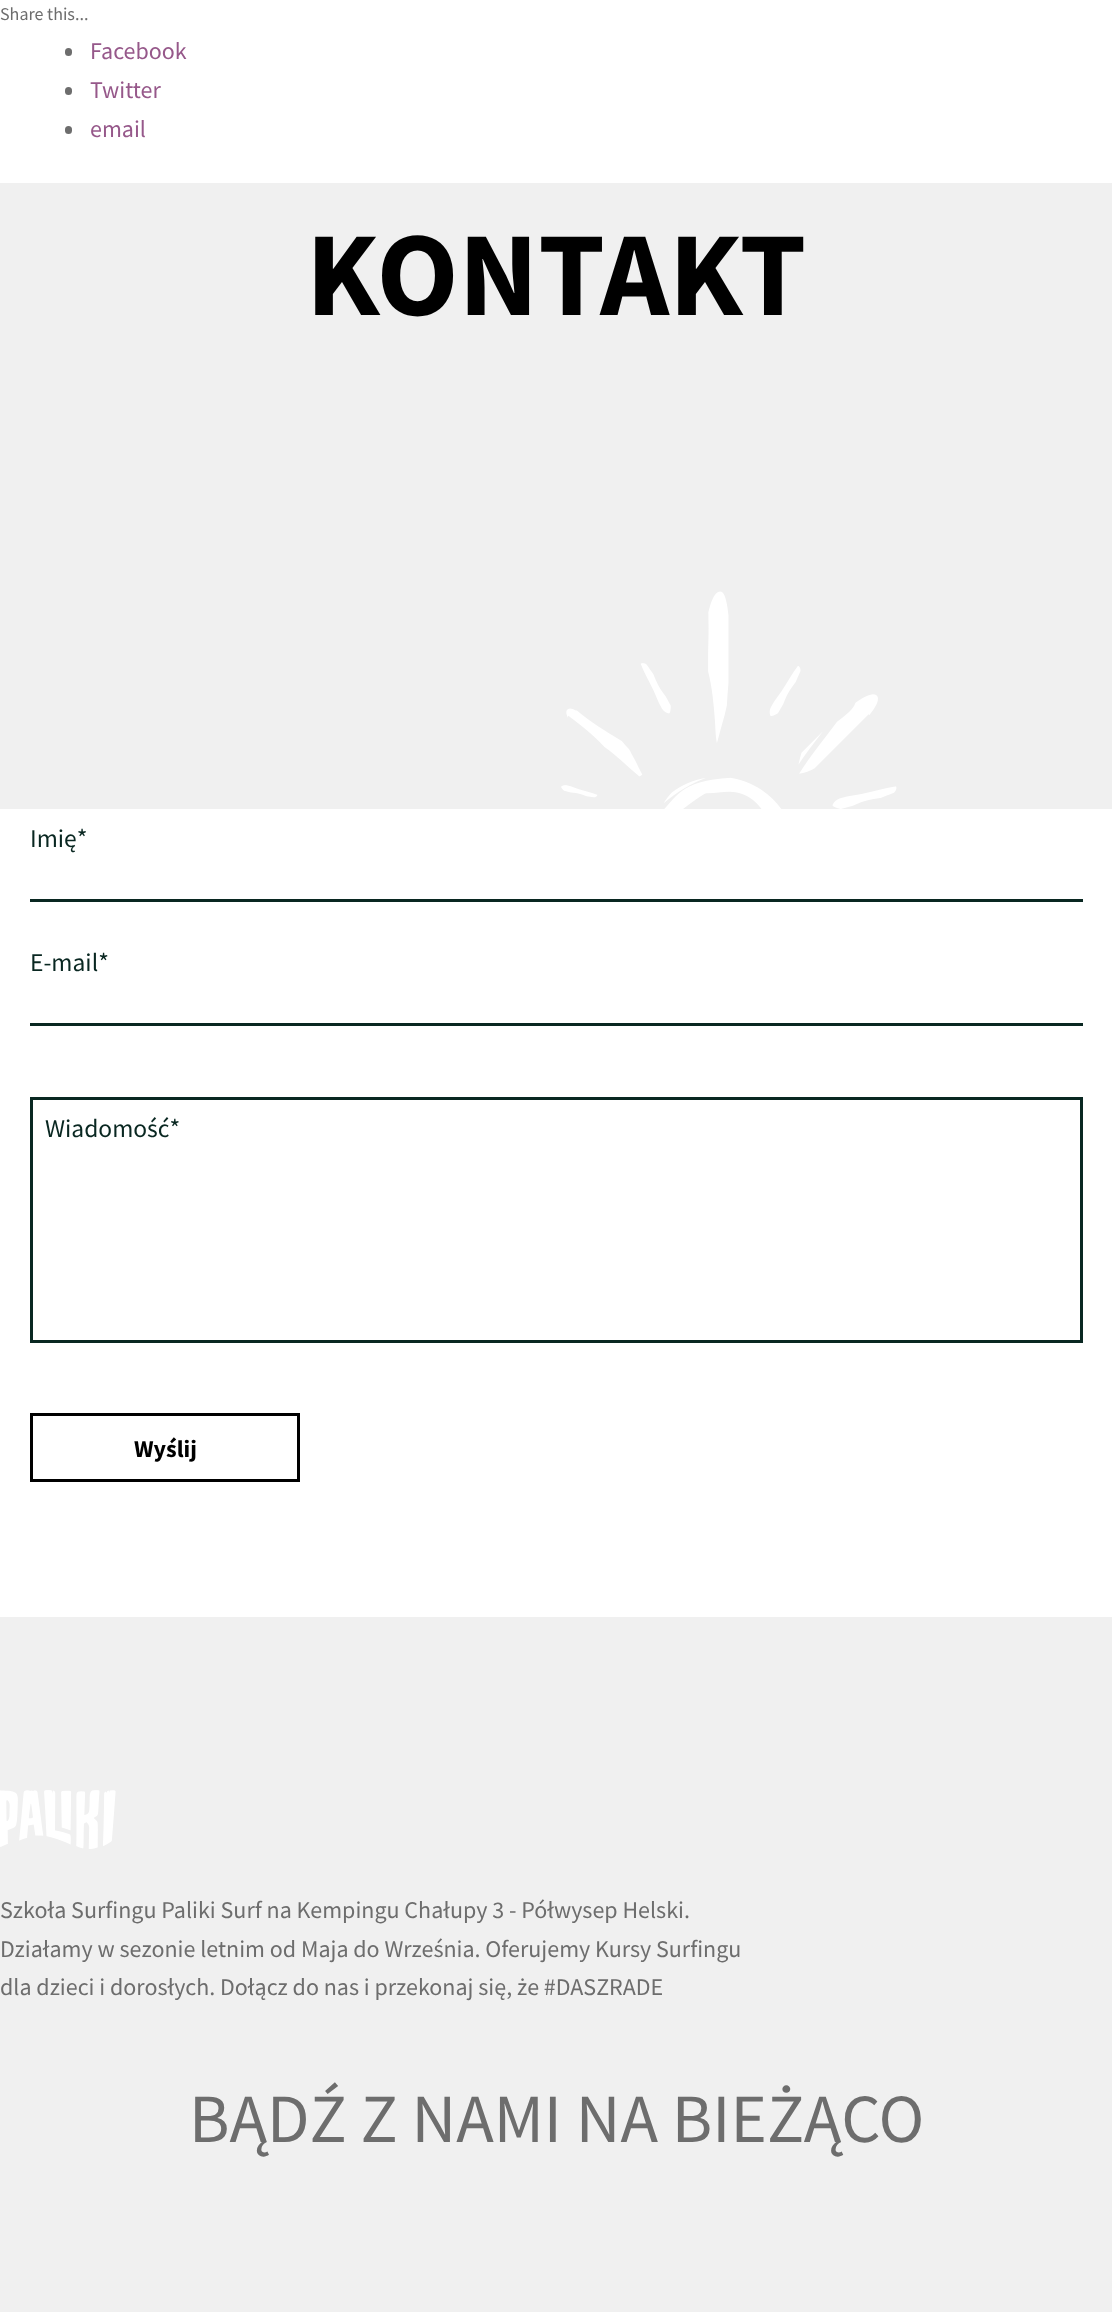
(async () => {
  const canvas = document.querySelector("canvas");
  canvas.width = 1112;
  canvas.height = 2312;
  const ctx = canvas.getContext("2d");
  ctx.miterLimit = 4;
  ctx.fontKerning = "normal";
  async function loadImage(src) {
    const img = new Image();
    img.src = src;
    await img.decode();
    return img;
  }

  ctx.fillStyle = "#ffffff";
  ctx.fillRect(0, 0, 1112, 2312);
  ctx.fillStyle = "#6d6d6d";
  ctx.beginPath();
  ctx.roundRect(65, 48, 7, 8, 3.5);
  ctx.fill();
  ctx.beginPath();
  ctx.roundRect(65, 87, 7, 8, 3.5);
  ctx.fill();
  ctx.beginPath();
  ctx.roundRect(65, 126, 7, 8, 3.5);
  ctx.fill();
  ctx.fillStyle = "#f0f0f0";
  ctx.fillRect(0, 183, 1112, 2129);
  ctx.drawImage(await loadImage("img/1.png"), 561, 591, 336, 218);
  for (const [x, y, w, h, color] of [
    [0, 809, 1112, 808, "#ffffff"],
    [30, 899, 1053, 3, "#092721"],
    [30, 1023, 1053, 3, "#092721"],
  ]) {
    ctx.fillStyle = color;
    ctx.fillRect(x, y, w, h);
  }
  ctx.strokeStyle = "#092721";
  ctx.lineWidth = 3;
  ctx.strokeRect(31.5, 1098.5, 1050, 243);
  ctx.strokeStyle = "#000000";
  ctx.strokeRect(31.5, 1414.5, 267, 66);
  ctx.drawImage(await loadImage("img/2.png"), 0, 1790, 116, 59);
  ctx.font = "18px Source Sans Pro";
  ctx.fillStyle = "#6d6d6d";
  ctx.fillText("Share this...", 0, 20);
  ctx.font = "24px Source Sans Pro";
  ctx.fillStyle = "#96588a";
  for (const [text, x, y] of [
    ["Facebook", 90, 59],
    ["Twitter", 90, 98],
    ["email", 90, 137],
  ]) {
    ctx.fillText(text, x, y);
  }
  ctx.font = "bold 120px Source Sans Pro";
  ctx.fillStyle = "#000000";
  ctx.fillText("KONTAKT", 306, 315);
  ctx.font = "25.5px Source Sans Pro";
  ctx.fillStyle = "#092721";
  for (const [text, x, y] of [
    ["Imię*", 30, 847],
    ["E-mail*", 30, 971],
    ["Wiadomość*", 45, 1137],
  ]) {
    ctx.fillText(text, x, y);
  }
  ctx.font = "bold 24px Source Sans Pro";
  ctx.fillStyle = "#000000";
  ctx.fillText("Wyślij", 134, 1457);
  ctx.font = "24px Source Sans Pro";
  ctx.fillStyle = "#6d6d6d";
  for (const [text, x, y] of [
    ["Szkoła Surfingu Paliki Surf na Kempingu Chałupy 3 - Półwysep Helski.", 0, 1918],
    ["Działamy w sezonie letnim od Maja do Września. Oferujemy Kursy Surfingu", 0, 1957],
    ["dla dzieci i dorosłych. Dołącz do nas i przekonaj się, że #DASZRADE", 0, 1995],
  ]) {
    ctx.fillText(text, x, y);
  }
  ctx.font = "69px Source Sans Pro";
  ctx.fillText("BĄDŹ Z NAMI NA BIEŻĄCO", 189, 2142);
})();
